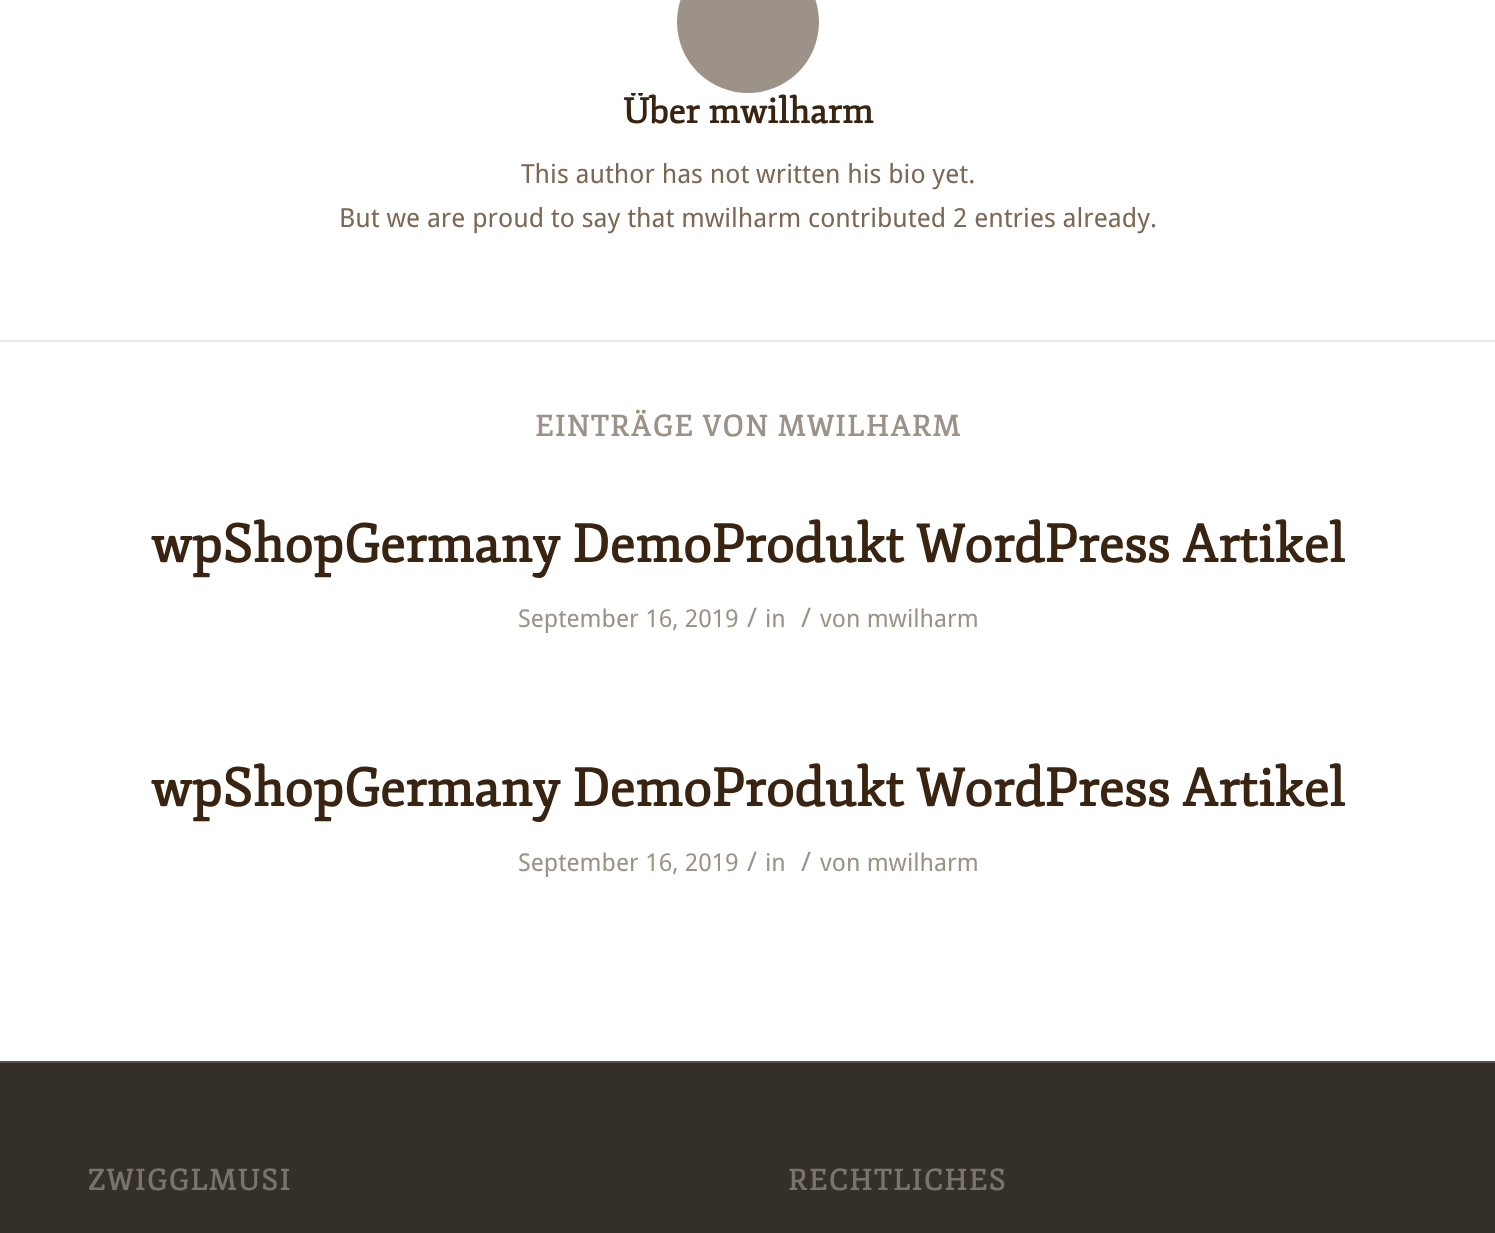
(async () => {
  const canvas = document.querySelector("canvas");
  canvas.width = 1495;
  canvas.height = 1233;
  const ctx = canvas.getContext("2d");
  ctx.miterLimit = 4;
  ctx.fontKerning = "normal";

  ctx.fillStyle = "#ffffff";
  ctx.fillRect(0, 0, 1495, 1233);
  ctx.fillStyle = "#9c9288";
  ctx.beginPath();
  ctx.arc(748, 22, 71, 0, Math.PI * 2);
  ctx.fill();
  for (const [x, y, w, h, color] of [
    [0, 340, 1495, 2, "#ebe8e2"],
    [0, 1063, 1495, 170, "#342f29"],
    [0, 1061, 1495, 2, "#575149"],
  ]) {
    ctx.fillStyle = color;
    ctx.fillRect(x, y, w, h);
  }
  ctx.save();
  ctx.beginPath();
  ctx.rect(88, 93, 1321, 170);
  ctx.clip();
  ctx.font = "bold 35px Fjord";
  ctx.fillStyle = "#382410";
  ctx.fillText("Über", 623, 123);
  ctx.restore();
  ctx.font = "bold 35px Fjord";
  ctx.fillStyle = "#382410";
  ctx.fillText("mwilharm", 708, 123);
  ctx.font = "26.25px Droid Sans";
  ctx.fillStyle = "#7c6853";
  ctx.fillText("This author has not written his bio yet.", 521, 183);
  ctx.fillText("But we are proud to say that mwilharm contributed 2 entries already.", 339, 227);
  ctx.letterSpacing = "1.75px";
  ctx.font = "bold 28.9px Fjord";
  ctx.fillStyle = "#9c9288";
  ctx.fillText("EINTRÄGE VON MWILHARM", 535, 436);
  ctx.letterSpacing = "0px";
  ctx.font = "bold 52.5px Fjord";
  ctx.fillStyle = "#382410";
  ctx.fillText("wpShopGermany DemoProdukt WordPress Artikel", 151, 562);
  ctx.font = "24.5px Droid Sans";
  ctx.fillStyle = "#9c9288";
  ctx.fillText("September 16, 2019", 518, 627);
  ctx.font = "27px Droid Sans";
  ctx.fillText("/", 747, 627);
  ctx.font = "24.5px Droid Sans";
  ctx.fillText("in", 765, 627);
  ctx.font = "27px Droid Sans";
  ctx.fillText("/", 801, 627);
  ctx.font = "24.5px Droid Sans";
  ctx.fillText("von mwilharm", 820, 627);
  ctx.font = "bold 52.5px Fjord";
  ctx.fillStyle = "#382410";
  ctx.fillText("wpShopGermany DemoProdukt WordPress Artikel", 151, 806);
  ctx.font = "24.5px Droid Sans";
  ctx.fillStyle = "#9c9288";
  ctx.fillText("September 16, 2019", 518, 871);
  ctx.font = "27px Droid Sans";
  ctx.fillText("/", 747, 871);
  ctx.font = "24.5px Droid Sans";
  ctx.fillText("in", 765, 871);
  ctx.font = "27px Droid Sans";
  ctx.fillText("/", 801, 871);
  ctx.font = "24.5px Droid Sans";
  ctx.fillText("von mwilharm", 820, 871);
  ctx.letterSpacing = "1.75px";
  ctx.font = "bold 28.9px Fjord";
  ctx.fillStyle = "#7a736b";
  ctx.fillText("ZWIGGLMUSI", 88, 1190);
  ctx.fillText("RECHTLICHES", 788, 1190);
})();
